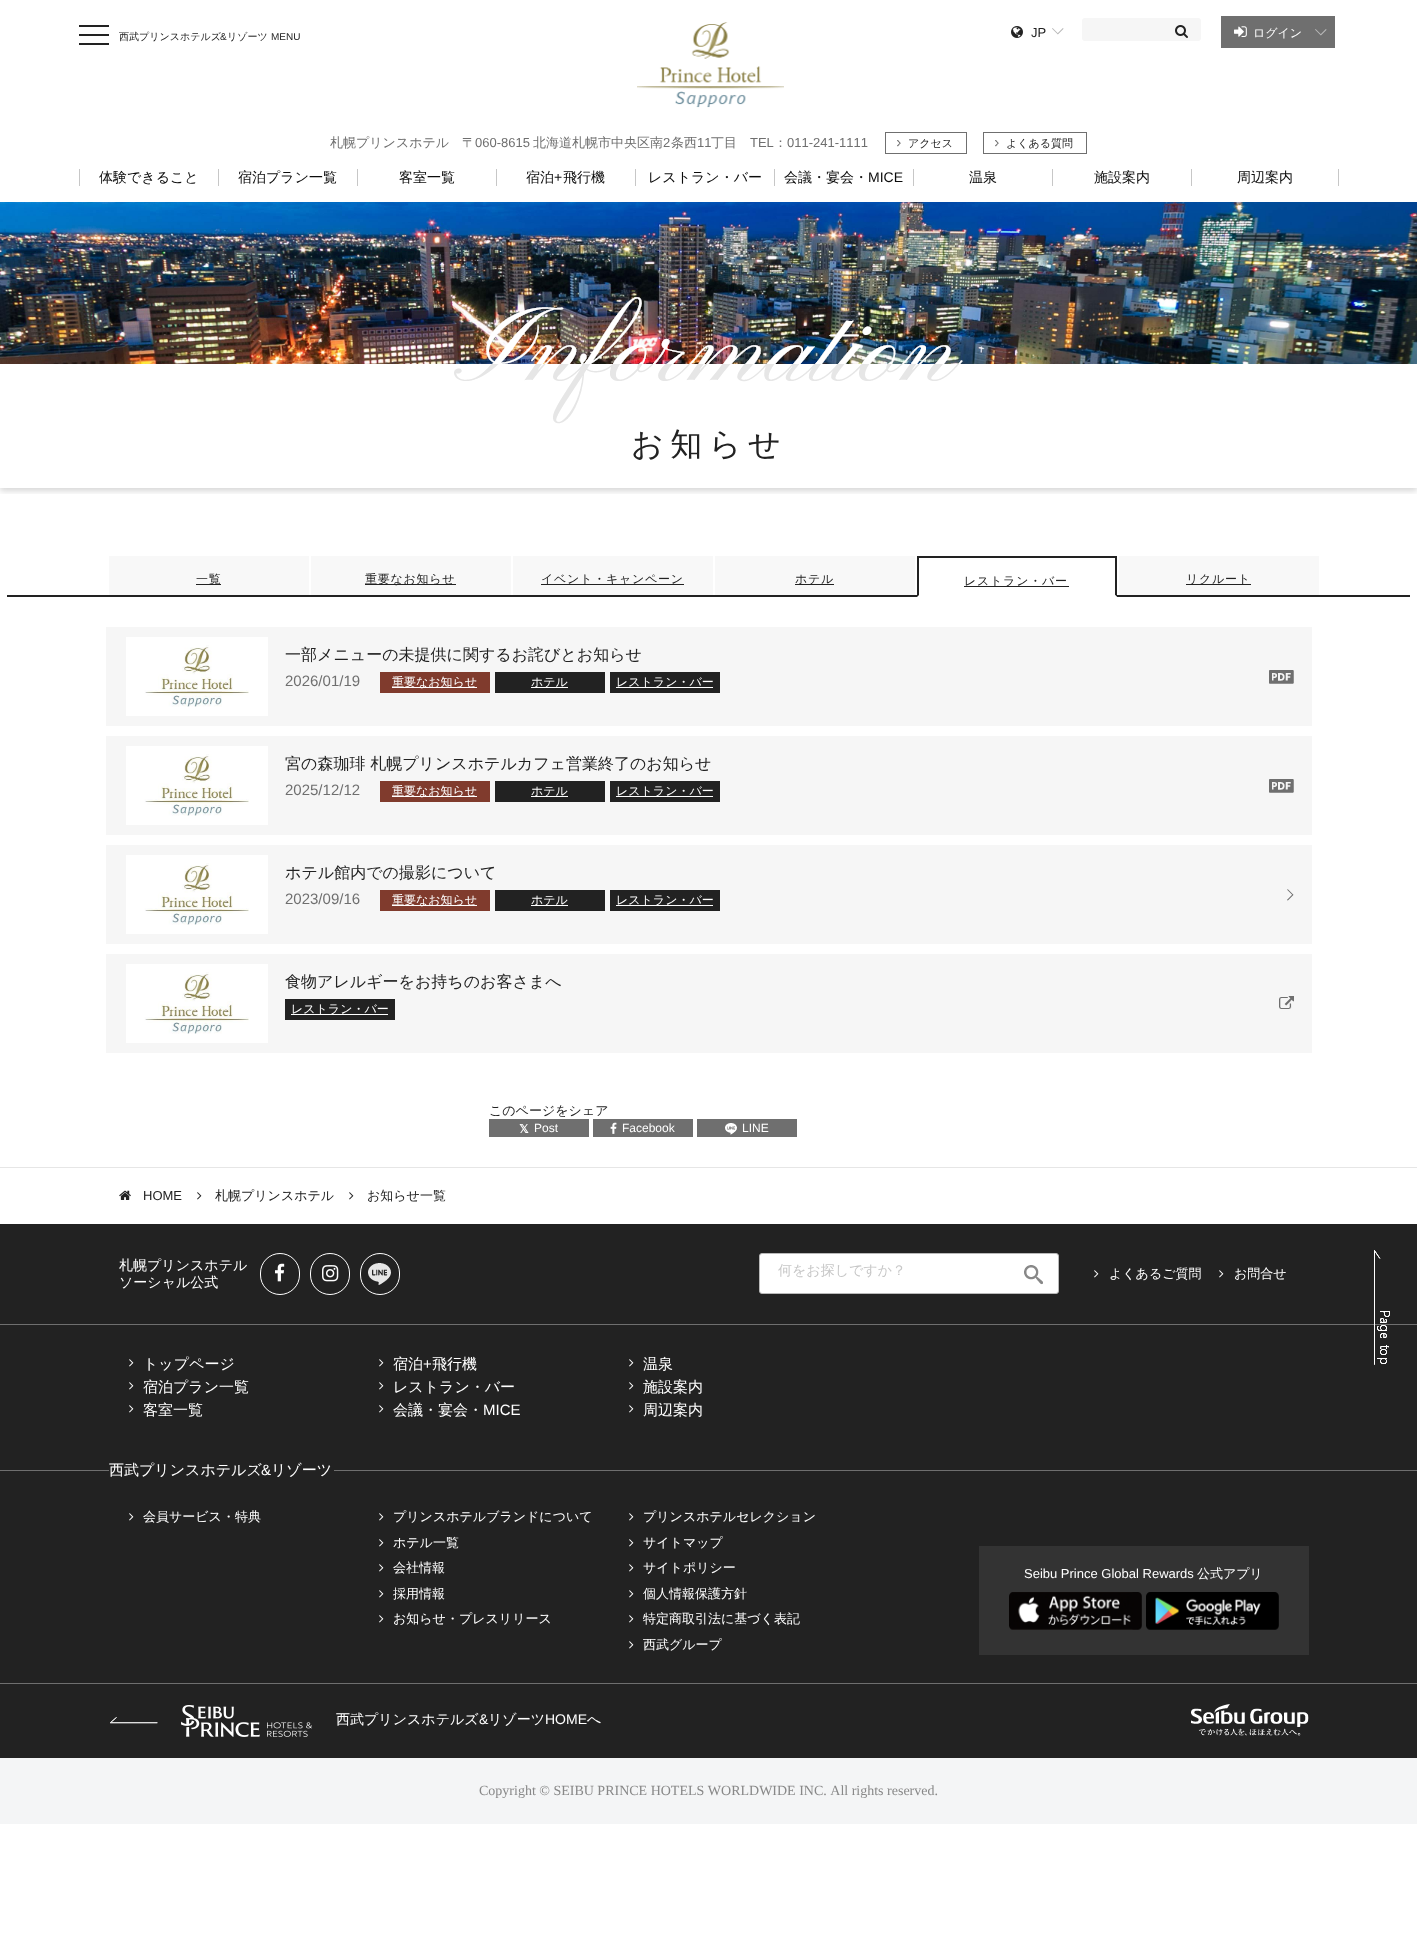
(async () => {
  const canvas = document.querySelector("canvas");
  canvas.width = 1417;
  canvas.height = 1936;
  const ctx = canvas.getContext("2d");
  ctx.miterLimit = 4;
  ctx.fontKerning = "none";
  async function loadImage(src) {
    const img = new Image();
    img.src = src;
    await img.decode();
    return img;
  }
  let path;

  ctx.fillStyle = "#ffffff";
  ctx.fillRect(0, 0, 1417, 1936);
  ctx.drawImage(await loadImage("img/1.png"), 79, 25, 30, 20);
  ctx.drawImage(await loadImage("img/2.png"), 637, 22, 147, 86);
  ctx.drawImage(await loadImage("img/3.png"), 1052, 28, 12, 7);
  ctx.drawImage(await loadImage("img/4.png"), 1011, 26, 12, 12);
  ctx.fillStyle = "#f6f6f6";
  ctx.beginPath();
  ctx.roundRect(1082, 18, 119, 23, 3);
  ctx.fill();
  ctx.drawImage(await loadImage("img/5.png"), 1175, 25, 13, 13);
  ctx.fillStyle = "#6f6f6f";
  ctx.fillRect(1221, 16, 114, 32);
  ctx.drawImage(await loadImage("img/6.png"), 1315, 29, 12, 7);
  ctx.drawImage(await loadImage("img/7.png"), 1234, 26, 13, 11);
  ctx.strokeStyle = "#6f6f6f";
  ctx.strokeRect(885.5, 132.5, 81, 21);
  ctx.drawImage(await loadImage("img/8.png"), 897, 140, 4, 7);
  ctx.strokeRect(983.5, 132.5, 103, 21);
  ctx.drawImage(await loadImage("img/8.png"), 995, 140, 4, 7);
  for (const [x, y, w, h, color] of [
    [79, 169, 1, 17, "#c7c7c7"],
    [218, 169, 1, 17, "#c7c7c7"],
    [357, 169, 1, 17, "#c7c7c7"],
    [496, 169, 1, 17, "#c7c7c7"],
    [635, 169, 1, 17, "#c7c7c7"],
    [774, 169, 1, 17, "#c7c7c7"],
    [913, 169, 1, 17, "#c7c7c7"],
    [1052, 169, 1, 17, "#c7c7c7"],
    [1338, 169, 1, 17, "#c7c7c7"],
    [1191, 169, 1, 17, "#c7c7c7"],
  ]) {
    ctx.fillStyle = color;
    ctx.fillRect(x, y, w, h);
  }
  ctx.save();
  ctx.beginPath();
  ctx.rect(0, 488, 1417, 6);
  ctx.clip();
  ctx.fillStyle = "rgba(0, 0, 0, 0.16)";
  ctx.filter = "blur(3px)";
  ctx.beginPath();
  ctx.rect(0, 205, 1417, 286);
  ctx.fill();
  ctx.filter = "none";
  ctx.restore();
  ctx.drawImage(await loadImage("img/9.png"), 0, 202, 1417, 162);
  ctx.drawImage(await loadImage("img/10.png"), 454, 297, 509, 127);
  for (const [x, y, w, h, color] of [
    [109, 556, 200, 39, "#f8f8f8"],
    [196, 584, 25, 1, "#222222"],
    [311, 556, 200, 39, "#f8f8f8"],
    [365, 584, 91, 1, "#222222"],
    [513, 556, 200, 39, "#f8f8f8"],
    [541, 584, 143, 1, "#222222"],
    [715, 556, 200, 39, "#f8f8f8"],
    [795, 584, 39, 1, "#222222"],
    [7, 595, 1403, 2, "#222222"],
    [917, 595, 200, 2, "#ffffff"],
    [917, 556, 200, 2, "#222222"],
  ]) {
    ctx.fillStyle = color;
    ctx.fillRect(x, y, w, h);
  }
  path = new Path2D("M1117 556V597L1115 595V558Z");
  ctx.fill(path);
  ctx.fillStyle = "#ffffff";
  path = new Path2D("M1117 597H917L919 595H1115Z");
  ctx.fill(path);
  ctx.fillStyle = "#222222";
  path = new Path2D("M917 597V556L919 558V595Z");
  ctx.fill(path);
  for (const [x, y, w, h, color] of [
    [964, 586, 105, 1, "#222222"],
    [1119, 556, 200, 39, "#f8f8f8"],
    [1186, 584, 65, 1, "#222222"],
    [106, 627, 1206, 99, "#f6f6f6"],
  ]) {
    ctx.fillStyle = color;
    ctx.fillRect(x, y, w, h);
  }
  ctx.drawImage(await loadImage("img/11.png"), 1269, 670, 25, 14);
  ctx.drawImage(await loadImage("img/12.png"), 126, 637, 142, 79);
  for (const [x, y, w, h, color] of [
    [380, 672, 110, 21, "#803b2d"],
    [392, 687, 85, 1, "#ffffff"],
    [495, 672, 110, 21, "#222222"],
    [531, 687, 37, 1, "#ffffff"],
    [610, 672, 110, 21, "#222222"],
    [616, 687, 97, 1, "#ffffff"],
    [106, 736, 1206, 99, "#f6f6f6"],
  ]) {
    ctx.fillStyle = color;
    ctx.fillRect(x, y, w, h);
  }
  ctx.drawImage(await loadImage("img/11.png"), 1269, 779, 25, 14);
  ctx.drawImage(await loadImage("img/13.png"), 126, 746, 142, 79);
  for (const [x, y, w, h, color] of [
    [380, 781, 110, 21, "#803b2d"],
    [392, 796, 85, 1, "#ffffff"],
    [495, 781, 110, 21, "#222222"],
    [531, 796, 37, 1, "#ffffff"],
    [610, 781, 110, 21, "#222222"],
    [616, 796, 97, 1, "#ffffff"],
    [106, 845, 1206, 99, "#f6f6f6"],
  ]) {
    ctx.fillStyle = color;
    ctx.fillRect(x, y, w, h);
  }
  ctx.drawImage(await loadImage("img/14.png"), 1287, 889, 7, 12);
  ctx.drawImage(await loadImage("img/12.png"), 126, 855, 142, 79);
  for (const [x, y, w, h, color] of [
    [380, 890, 110, 21, "#803b2d"],
    [392, 905, 85, 1, "#ffffff"],
    [495, 890, 110, 21, "#222222"],
    [531, 905, 37, 1, "#ffffff"],
    [610, 890, 110, 21, "#222222"],
    [616, 905, 97, 1, "#ffffff"],
    [106, 954, 1206, 99, "#f6f6f6"],
  ]) {
    ctx.fillStyle = color;
    ctx.fillRect(x, y, w, h);
  }
  ctx.drawImage(await loadImage("img/15.png"), 1279, 996, 15, 13);
  ctx.drawImage(await loadImage("img/12.png"), 126, 964, 142, 79);
  for (const [x, y, w, h, color] of [
    [285, 999, 110, 21, "#222222"],
    [291, 1014, 97, 1, "#ffffff"],
    [489, 1119, 100, 18, "#6f6f6f"],
    [593, 1119, 100, 18, "#6f6f6f"],
  ]) {
    ctx.fillStyle = color;
    ctx.fillRect(x, y, w, h);
  }
  ctx.drawImage(await loadImage("img/16.png"), 610, 1122, 7, 12);
  ctx.fillRect(697, 1119, 100, 18);
  ctx.drawImage(await loadImage("img/17.png"), 725, 1123, 12, 12);
  ctx.fillStyle = "#e6e6e6";
  ctx.fillRect(0, 1167, 1417, 1);
  ctx.drawImage(await loadImage("img/18.png"), 119, 1190, 12, 10);
  ctx.drawImage(await loadImage("img/19.png"), 197, 1192, 5, 8);
  ctx.drawImage(await loadImage("img/19.png"), 349, 1192, 5, 8);
  ctx.fillStyle = "#222222";
  ctx.fillRect(0, 1224, 1417, 534);
  ctx.fillStyle = "#6f6f6f";
  ctx.fillRect(0, 1324, 1417, 1);
  ctx.beginPath();
  ctx.roundRect(260.5, 1253.5, 39, 41, 19.5);
  ctx.strokeStyle = "#ffffff";
  ctx.stroke();
  ctx.drawImage(await loadImage("img/20.png"), 275, 1263, 10, 19);
  ctx.beginPath();
  ctx.roundRect(310.5, 1253.5, 39, 41, 19.5);
  ctx.stroke();
  ctx.drawImage(await loadImage("img/21.png"), 322, 1265, 17, 17);
  ctx.beginPath();
  ctx.roundRect(360.5, 1253.5, 39, 41, 19.5);
  ctx.stroke();
  ctx.drawImage(await loadImage("img/22.png"), 368, 1263, 23, 22);
  ctx.fillStyle = "#ffffff";
  ctx.beginPath();
  ctx.roundRect(759.5, 1253.5, 299, 40, 2.5);
  ctx.fill();
  ctx.strokeStyle = "#b9b9b9";
  ctx.stroke();
  ctx.drawImage(await loadImage("img/23.png"), 1024, 1265, 19, 20);
  ctx.drawImage(await loadImage("img/24.png"), 1094, 1270, 5, 8);
  ctx.drawImage(await loadImage("img/24.png"), 1219, 1270, 5, 8);
  ctx.drawImage(await loadImage("img/25.png"), 1374, 1250, 16, 115);
  ctx.fillStyle = "#6f6f6f";
  ctx.fillRect(0, 1470, 1417, 1);
  ctx.drawImage(await loadImage("img/24.png"), 129, 1359, 5, 8);
  ctx.drawImage(await loadImage("img/24.png"), 129, 1382, 5, 8);
  ctx.drawImage(await loadImage("img/24.png"), 129, 1405, 5, 8);
  ctx.drawImage(await loadImage("img/24.png"), 379, 1359, 5, 8);
  ctx.drawImage(await loadImage("img/24.png"), 379, 1382, 5, 8);
  ctx.drawImage(await loadImage("img/24.png"), 379, 1405, 5, 8);
  ctx.drawImage(await loadImage("img/24.png"), 629, 1359, 5, 8);
  ctx.drawImage(await loadImage("img/24.png"), 629, 1382, 5, 8);
  ctx.drawImage(await loadImage("img/24.png"), 629, 1405, 5, 8);
  ctx.fillRect(0, 1683, 1417, 1);
  ctx.fillStyle = "#222222";
  ctx.fillRect(109, 1470, 225, 1);
  ctx.drawImage(await loadImage("img/24.png"), 129, 1513, 5, 8);
  ctx.drawImage(await loadImage("img/24.png"), 379, 1513, 5, 8);
  ctx.drawImage(await loadImage("img/24.png"), 379, 1539, 5, 8);
  ctx.drawImage(await loadImage("img/24.png"), 379, 1564, 5, 8);
  ctx.drawImage(await loadImage("img/24.png"), 379, 1590, 5, 8);
  ctx.drawImage(await loadImage("img/24.png"), 379, 1615, 5, 8);
  ctx.drawImage(await loadImage("img/24.png"), 629, 1513, 5, 8);
  ctx.drawImage(await loadImage("img/24.png"), 629, 1539, 5, 8);
  ctx.drawImage(await loadImage("img/24.png"), 629, 1564, 5, 8);
  ctx.drawImage(await loadImage("img/24.png"), 629, 1590, 5, 8);
  ctx.drawImage(await loadImage("img/24.png"), 629, 1615, 5, 8);
  ctx.drawImage(await loadImage("img/24.png"), 629, 1641, 5, 8);
  ctx.fillStyle = "#333333";
  ctx.fillRect(979, 1546, 330, 109);
  ctx.drawImage(await loadImage("img/26.png"), 1009, 1592, 133, 38);
  ctx.drawImage(await loadImage("img/27.png"), 1146, 1592, 133, 38);
  ctx.drawImage(await loadImage("img/28.png"), 110, 1717, 48, 7);
  ctx.drawImage(await loadImage("img/29.png"), 181, 1705, 131, 32);
  ctx.drawImage(await loadImage("img/30.png"), 1191, 1704, 118, 32);
  ctx.fillStyle = "#f4f5f6";
  ctx.fillRect(0, 1758, 1417, 66);
  ctx.font = "500 10px WenQuanYi Zen Hei";
  ctx.fillStyle = "#222222";
  ctx.fillText("西武プリンスホテルズ", 119, 40);
  ctx.font = "10px Liberation Sans";
  ctx.fillText("&", 220, 40);
  ctx.font = "500 10px WenQuanYi Zen Hei";
  ctx.fillText("リゾーツ", 227, 40);
  ctx.font = "10px Liberation Sans";
  ctx.fillText("MENU", 271, 40);
  ctx.font = "13px Liberation Sans";
  ctx.fillText("JP", 1031, 37);
  ctx.font = "500 12px WenQuanYi Zen Hei";
  ctx.fillStyle = "#ffffff";
  ctx.fillText("ログイン", 1253, 37);
  ctx.font = "500 13px WenQuanYi Zen Hei";
  ctx.fillStyle = "#6f6f6f";
  ctx.fillText("札幌プリンスホテル", 330, 147);
  ctx.fillText("〒", 462, 147);
  ctx.font = "13px Liberation Sans";
  ctx.fillText("060-8615", 475, 147);
  ctx.font = "500 13px WenQuanYi Zen Hei";
  ctx.fillText("北海道札幌市中央区南", 533, 147);
  ctx.font = "13px Liberation Sans";
  ctx.fillText("2", 663, 147);
  ctx.font = "500 13px WenQuanYi Zen Hei";
  ctx.fillText("条西", 671, 147);
  ctx.font = "13px Liberation Sans";
  ctx.fillText("11", 697, 147);
  ctx.font = "500 13px WenQuanYi Zen Hei";
  ctx.fillText("丁目", 711, 147);
  ctx.font = "13px Liberation Sans";
  ctx.fillText("TEL", 750, 147);
  ctx.font = "500 13px WenQuanYi Zen Hei";
  ctx.fillText("：", 774, 147);
  ctx.font = "13px Liberation Sans";
  ctx.fillText("011-241-1111", 787, 147);
  ctx.font = "500 11px WenQuanYi Zen Hei";
  ctx.fillStyle = "#222222";
  ctx.fillText("アクセス", 908, 147);
  ctx.fillText("よくある質問", 1006, 147);
  ctx.font = "500 14px WenQuanYi Zen Hei";
  ctx.fillStyle = "#0b0b0b";
  for (const [text, x, y] of [
    ["体験できること", 99, 182],
    ["宿泊プラン一覧", 238, 182],
    ["客室一覧", 399, 182],
    ["宿泊", 526, 182],
  ]) {
    ctx.fillText(text, x, y);
  }
  ctx.font = "14px Liberation Sans";
  ctx.fillText("+", 554, 182);
  ctx.font = "500 14px WenQuanYi Zen Hei";
  for (const [text, x, y] of [
    ["飛行機", 563, 182],
    ["レストラン・バー", 648, 182],
    ["会議・宴会・", 784, 182],
  ]) {
    ctx.fillText(text, x, y);
  }
  ctx.font = "14px Liberation Sans";
  ctx.fillText("MICE", 868, 182);
  ctx.font = "500 14px WenQuanYi Zen Hei";
  for (const [text, x, y] of [
    ["温泉", 969, 182],
    ["施設案内", 1094, 182],
    ["周辺案内", 1237, 182],
  ]) {
    ctx.fillText(text, x, y);
  }
  ctx.letterSpacing = "6.5px";
  ctx.font = "500 32px WenQuanYi Zen Hei";
  ctx.fillStyle = "#222222";
  ctx.fillText("お知らせ", 631, 455);
  ctx.letterSpacing = "0.75px";
  ctx.font = "500 12px WenQuanYi Zen Hei";
  for (const [text, x, y] of [
    ["一覧", 196, 583],
    ["重要なお知らせ", 365, 583],
    ["イベント・キャンペーン", 541, 583],
    ["ホテル", 795, 583],
    ["レストラン・バー", 964, 585],
    ["リクルート", 1186, 583],
  ]) {
    ctx.fillText(text, x, y);
  }
  ctx.letterSpacing = "0px";
  ctx.font = "500 16px WenQuanYi Zen Hei";
  ctx.fillText("一部メニューの未提供に関するお詫びとお知らせ", 285, 660);
  ctx.font = "15px Liberation Sans";
  ctx.fillStyle = "#6f6f6f";
  ctx.fillText("2026/01/19", 285, 686);
  ctx.font = "500 12px WenQuanYi Zen Hei";
  ctx.fillStyle = "#ffffff";
  for (const [text, x, y] of [
    ["重要なお知らせ", 392, 686],
    ["ホテル", 531, 686],
    ["レストラン・バー", 616, 686],
  ]) {
    ctx.fillText(text, x, y);
  }
  ctx.font = "500 16px WenQuanYi Zen Hei";
  ctx.fillStyle = "#222222";
  ctx.fillText("宮の森珈琲 札幌プリンスホテルカフェ営業終了のお知らせ", 285, 769);
  ctx.font = "15px Liberation Sans";
  ctx.fillStyle = "#6f6f6f";
  ctx.fillText("2025/12/12", 285, 795);
  ctx.font = "500 12px WenQuanYi Zen Hei";
  ctx.fillStyle = "#ffffff";
  for (const [text, x, y] of [
    ["重要なお知らせ", 392, 795],
    ["ホテル", 531, 795],
    ["レストラン・バー", 616, 795],
  ]) {
    ctx.fillText(text, x, y);
  }
  ctx.font = "500 16px WenQuanYi Zen Hei";
  ctx.fillStyle = "#222222";
  ctx.fillText("ホテル館内での撮影について", 285, 878);
  ctx.font = "15px Liberation Sans";
  ctx.fillStyle = "#6f6f6f";
  ctx.fillText("2023/09/16", 285, 904);
  ctx.font = "500 12px WenQuanYi Zen Hei";
  ctx.fillStyle = "#ffffff";
  for (const [text, x, y] of [
    ["重要なお知らせ", 392, 904],
    ["ホテル", 531, 904],
    ["レストラン・バー", 616, 904],
  ]) {
    ctx.fillText(text, x, y);
  }
  ctx.font = "500 16px WenQuanYi Zen Hei";
  ctx.fillStyle = "#222222";
  ctx.fillText("食物アレルギーをお持ちのお客さまへ", 285, 987);
  ctx.font = "500 12px WenQuanYi Zen Hei";
  ctx.fillStyle = "#ffffff";
  ctx.fillText("レストラン・バー", 291, 1013);
  ctx.font = "500 13px WenQuanYi Zen Hei";
  ctx.fillStyle = "#222222";
  ctx.fillText("このページをシェア", 489, 1115);
  ctx.font = "bold 12px DejaVu Sans";
  ctx.fillStyle = "#ffffff";
  ctx.fillText("𝕏", 519, 1133);
  ctx.font = "12px Liberation Sans";
  for (const [text, x, y] of [
    ["Post", 534, 1132],
    ["Facebook", 622, 1132],
    ["LINE", 742, 1132],
  ]) {
    ctx.fillText(text, x, y);
  }
  ctx.font = "13px Liberation Sans";
  ctx.fillStyle = "#222222";
  ctx.fillText("HOME", 143, 1200);
  ctx.font = "500 13px WenQuanYi Zen Hei";
  ctx.fillText("札幌プリンスホテル", 215, 1200);
  ctx.fillText("お知らせ一覧", 367, 1200);
  ctx.font = "500 14px WenQuanYi Zen Hei";
  ctx.fillStyle = "#ffffff";
  ctx.fillText("札幌プリンスホテル", 119, 1270);
  ctx.fillText("ソーシャル公式", 119, 1287);
  ctx.fillStyle = "#c7c7c7";
  ctx.fillText("何をお探しですか？", 778, 1275);
  ctx.font = "500 13px WenQuanYi Zen Hei";
  ctx.fillStyle = "#ffffff";
  ctx.fillText("よくあるご質問", 1109, 1278);
  ctx.fillText("お問合せ", 1234, 1278);
  ctx.font = "500 15px WenQuanYi Zen Hei";
  for (const [text, x, y] of [
    ["トップページ", 143, 1369],
    ["宿泊プラン一覧", 143, 1392],
    ["客室一覧", 143, 1415],
    ["宿泊", 393, 1369],
  ]) {
    ctx.fillText(text, x, y);
  }
  ctx.font = "15px Liberation Sans";
  ctx.fillText("+", 423, 1369);
  ctx.font = "500 15px WenQuanYi Zen Hei";
  for (const [text, x, y] of [
    ["飛行機", 432, 1369],
    ["レストラン・バー", 393, 1392],
    ["会議・宴会・", 393, 1415],
  ]) {
    ctx.fillText(text, x, y);
  }
  ctx.font = "15px Liberation Sans";
  ctx.fillText("MICE", 483, 1415);
  ctx.font = "500 15px WenQuanYi Zen Hei";
  for (const [text, x, y] of [
    ["温泉", 643, 1369],
    ["施設案内", 643, 1392],
    ["周辺案内", 643, 1415],
    ["西武プリンスホテルズ", 109, 1475],
  ]) {
    ctx.fillText(text, x, y);
  }
  ctx.font = "15px Liberation Sans";
  ctx.fillText("&", 261, 1475);
  ctx.font = "500 15px WenQuanYi Zen Hei";
  ctx.fillText("リゾーツ", 271, 1475);
  ctx.font = "500 13px WenQuanYi Zen Hei";
  for (const [text, x, y] of [
    ["会員サービス・特典", 143, 1521],
    ["プリンスホテルブランドについて", 393, 1521],
    ["ホテル一覧", 393, 1547],
    ["会社情報", 393, 1572],
    ["採用情報", 393, 1598],
    ["お知らせ・プレスリリース", 393, 1623],
    ["プリンスホテルセレクション", 643, 1521],
    ["サイトマップ", 643, 1547],
    ["サイトポリシー", 643, 1572],
    ["個人情報保護方針", 643, 1598],
    ["特定商取引法に基づく表記", 643, 1623],
    ["西武グループ", 643, 1649],
  ]) {
    ctx.fillText(text, x, y);
  }
  ctx.font = "13px Liberation Sans";
  ctx.fillText("Seibu Prince Global Rewards", 1024, 1578);
  ctx.font = "500 13px WenQuanYi Zen Hei";
  ctx.fillText("公式アプリ", 1197, 1578);
  ctx.font = "500 14px WenQuanYi Zen Hei";
  ctx.fillText("西武プリンスホテルズ", 336, 1724);
  ctx.font = "14px Liberation Sans";
  ctx.fillText("&", 479, 1724);
  ctx.font = "500 14px WenQuanYi Zen Hei";
  ctx.fillText("リゾーツ", 488, 1724);
  ctx.font = "14px Liberation Sans";
  ctx.fillText("HOME", 545, 1724);
  ctx.font = "500 14px WenQuanYi Zen Hei";
  ctx.fillText("へ", 587, 1724);
  ctx.font = "14px Liberation Serif";
  ctx.fillStyle = "#888888";
  ctx.fillText("Copyright © SEIBU PRINCE HOTELS WORLDWIDE INC. All rights reserved.", 479, 1795);
})();
